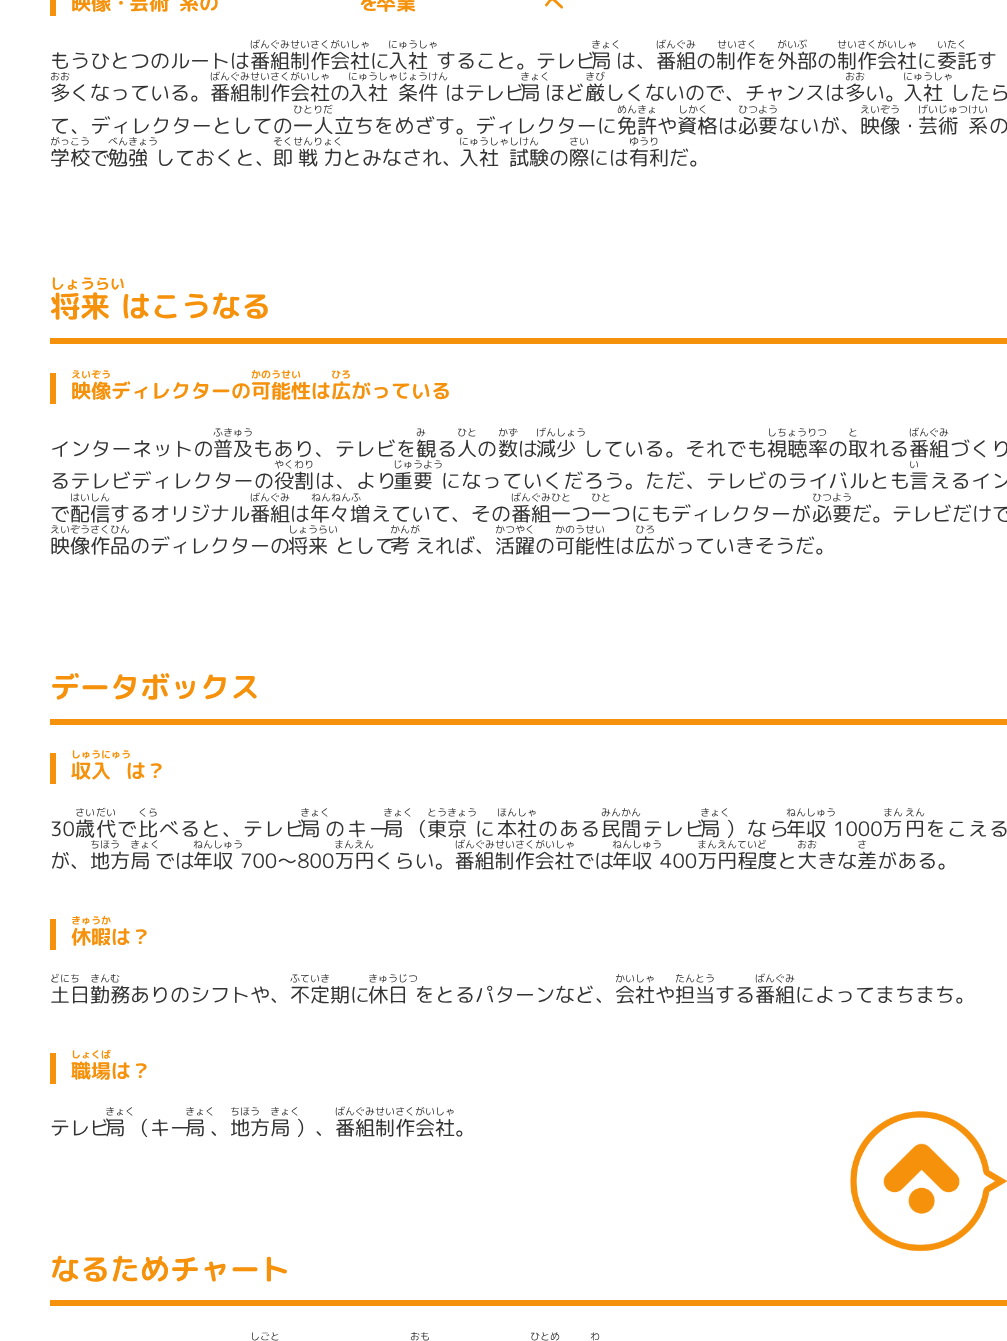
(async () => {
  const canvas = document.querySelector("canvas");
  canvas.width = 1007;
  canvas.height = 1341;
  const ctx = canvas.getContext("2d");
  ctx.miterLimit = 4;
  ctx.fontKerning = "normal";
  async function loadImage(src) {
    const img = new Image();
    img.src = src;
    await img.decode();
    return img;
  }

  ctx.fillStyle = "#ffffff";
  ctx.fillRect(0, 0, 1007, 1341);
  for (const [x, y, w, h, color] of [
    [50, 0, 6, 16, "#f5910a"],
    [50, 338, 957, 6, "#f5910a"],
    [50, 373, 6, 31, "#f5910a"],
    [50, 719, 957, 6, "#f5910a"],
    [50, 753, 6, 31, "#f5910a"],
    [50, 919, 6, 31, "#f5910a"],
    [50, 1053, 6, 31, "#f5910a"],
    [50, 1300, 957, 6, "#f5910a"],
  ]) {
    ctx.fillStyle = color;
    ctx.fillRect(x, y, w, h);
  }
  ctx.drawImage(await loadImage("img/1.png"), 850, 1111, 157, 141);
  ctx.drawImage(await loadImage("img/2.png"), 883, 1143, 77, 71);
  ctx.font = "bold 20px 'Rounded Mplus 1c Bold'";
  for (const [text, x, y] of [
    ["映像・", 71, 10],
    ["芸術", 129, 10],
    ["系の", 179, 10],
    ["を", 359, 10],
    ["卒業", 376, 10],
    ["へ", 544, 10],
  ]) {
    ctx.fillText(text, x, y);
  }
  ctx.font = "10px 'Rounded Mplus 1c'";
  ctx.fillStyle = "#333333";
  ctx.fillText("ばんぐみせいさくがいしゃ", 250, 48);
  ctx.font = "20px 'Rounded Mplus 1c'";
  ctx.fillText("番組制作会社に", 250, 68);
  ctx.font = "10px 'Rounded Mplus 1c'";
  ctx.fillText("にゅうしゃ", 388, 48);
  ctx.font = "20px 'Rounded Mplus 1c'";
  ctx.fillText("入社", 388, 68);
  ctx.font = "10px 'Rounded Mplus 1c'";
  for (const [text, x, y] of [
    ["きょく", 591, 48],
    ["ばんぐみ", 656, 48],
    ["せいさく", 717, 48],
    ["がいぶ", 777, 48],
    ["せいさくがいしゃ", 837, 48],
    ["いたく", 937, 48],
  ]) {
    ctx.fillText(text, x, y);
  }
  ctx.font = "20px 'Rounded Mplus 1c'";
  for (const [text, x, y] of [
    ["もうひとつのルートは", 50, 68],
    ["すること。テレビ", 436, 68],
    ["局", 591, 68],
    ["は、番組の制作", 616, 68],
    ["を外部の制作", 757, 68],
    ["会社に委託す", 877, 68],
  ]) {
    ctx.fillText(text, x, y);
  }
  ctx.font = "10px 'Rounded Mplus 1c'";
  for (const [text, x, y] of [
    ["ばんぐみせいさくがいしゃ", 210, 80],
    ["きび", 585, 80],
    ["おお", 50, 80],
  ]) {
    ctx.fillText(text, x, y);
  }
  ctx.font = "20px 'Rounded Mplus 1c'";
  ctx.fillText("多くなっている。番組制作会社の", 50, 100);
  ctx.font = "10px 'Rounded Mplus 1c'";
  ctx.fillText("にゅうしゃじょうけん", 348, 80);
  ctx.font = "20px 'Rounded Mplus 1c'";
  ctx.fillText("入社", 348, 100);
  ctx.font = "10px 'Rounded Mplus 1c'";
  for (const [text, x, y] of [
    ["きょく", 520, 80],
    ["おお", 845, 80],
    ["にゅうしゃ", 903, 80],
  ]) {
    ctx.fillText(text, x, y);
  }
  ctx.font = "20px 'Rounded Mplus 1c'";
  for (const [text, x, y] of [
    ["入社", 903, 100],
    ["条件", 398, 100],
    ["はテレビ", 445, 100],
    ["局", 520, 100],
    ["ほど厳しくないので、チャンスは多い。", 545, 100],
    ["したら", 950, 100],
  ]) {
    ctx.fillText(text, x, y);
  }
  ctx.letterSpacing = "0.25px";
  ctx.fillText("て、ディレクターとしての", 50, 133);
  ctx.letterSpacing = "0px";
  ctx.font = "10px 'Rounded Mplus 1c'";
  ctx.fillText("ひとりだ", 293, 113);
  ctx.letterSpacing = "0.5px";
  ctx.font = "20px 'Rounded Mplus 1c'";
  ctx.fillText("一人立", 293, 133);
  ctx.letterSpacing = "0.25px";
  ctx.fillText("ちをめざす。ディレクターに", 354, 133);
  ctx.letterSpacing = "0px";
  ctx.font = "10px 'Rounded Mplus 1c'";
  ctx.fillText("めんきょ", 617, 113);
  ctx.font = "20px 'Rounded Mplus 1c'";
  ctx.fillText("免許", 617, 133);
  ctx.font = "10px 'Rounded Mplus 1c'";
  for (const [text, x, y] of [
    ["しかく", 678, 113],
    ["ひつよう", 738, 113],
    ["えいぞう", 860, 113],
  ]) {
    ctx.fillText(text, x, y);
  }
  ctx.font = "20px 'Rounded Mplus 1c'";
  ctx.fillText("映像", 860, 133);
  ctx.font = "10px 'Rounded Mplus 1c'";
  ctx.fillText("げいじゅつけい", 918, 113);
  ctx.font = "20px 'Rounded Mplus 1c'";
  for (const [text, x, y] of [
    ["芸術", 918, 133],
    ["や資格", 657, 133],
    ["は必要", 718, 133],
  ]) {
    ctx.fillText(text, x, y);
  }
  ctx.letterSpacing = "0.5px";
  ctx.fillText("ないが、", 779, 133);
  ctx.letterSpacing = "0px";
  for (const [text, x, y] of [
    ["・", 900, 133],
    ["系", 968, 133],
    ["の", 989, 133],
  ]) {
    ctx.fillText(text, x, y);
  }
  ctx.font = "10px 'Rounded Mplus 1c'";
  ctx.fillText("がっこう", 50, 145);
  ctx.font = "20px 'Rounded Mplus 1c'";
  ctx.fillText("学校で", 50, 165);
  ctx.font = "10px 'Rounded Mplus 1c'";
  ctx.fillText("べんきょう", 108, 145);
  ctx.font = "20px 'Rounded Mplus 1c'";
  ctx.fillText("勉強", 108, 165);
  ctx.font = "10px 'Rounded Mplus 1c'";
  ctx.fillText("そくせんりょく", 273, 145);
  ctx.letterSpacing = "5px";
  ctx.font = "20px 'Rounded Mplus 1c'";
  ctx.fillText("即戦力", 273, 165);
  ctx.letterSpacing = "0px";
  ctx.font = "10px 'Rounded Mplus 1c'";
  ctx.fillText("にゅうしゃしけん", 459, 145);
  ctx.font = "20px 'Rounded Mplus 1c'";
  ctx.fillText("入社", 459, 165);
  ctx.font = "10px 'Rounded Mplus 1c'";
  ctx.fillText("さい", 569, 145);
  ctx.fillText("ゆうり", 629, 145);
  ctx.font = "20px 'Rounded Mplus 1c'";
  for (const [text, x, y] of [
    ["しておくと、", 155, 165],
    ["とみなされ、", 342, 165],
    ["試験の際には有利だ。", 509, 165],
  ]) {
    ctx.fillText(text, x, y);
  }
  ctx.font = "bold 15px 'Rounded Mplus 1c Bold'";
  ctx.fillStyle = "#f5910a";
  ctx.fillText("しょうらい", 50, 289);
  ctx.font = "bold 30px 'Rounded Mplus 1c Bold'";
  ctx.fillText("将来", 50, 317);
  ctx.fillText("はこうなる", 121, 317);
  ctx.font = "bold 10px 'Rounded Mplus 1c Bold'";
  ctx.fillText("かのうせい", 251, 378);
  ctx.fillText("えいぞう", 71, 378);
  ctx.font = "bold 20px 'Rounded Mplus 1c Bold'";
  ctx.fillText("映像ディレクターの可能性は広がっている", 71, 398);
  ctx.font = "bold 10px 'Rounded Mplus 1c Bold'";
  ctx.fillText("ひろ", 331, 378);
  ctx.letterSpacing = "0.5px";
  ctx.font = "20px 'Rounded Mplus 1c'";
  ctx.fillStyle = "#333333";
  ctx.fillText("インターネットの", 50, 456);
  ctx.letterSpacing = "0px";
  ctx.font = "10px 'Rounded Mplus 1c'";
  ctx.fillText("ふきゅう", 213, 436);
  ctx.font = "20px 'Rounded Mplus 1c'";
  ctx.fillText("普及", 213, 456);
  ctx.letterSpacing = "0.5px";
  ctx.fillText("もあり、テレビを", 253, 456);
  ctx.letterSpacing = "0px";
  ctx.font = "10px 'Rounded Mplus 1c'";
  ctx.fillText("み", 416, 436);
  ctx.font = "20px 'Rounded Mplus 1c'";
  ctx.fillText("観", 416, 456);
  ctx.fillText("る", 437, 456);
  ctx.font = "10px 'Rounded Mplus 1c'";
  ctx.fillText("ひと", 457, 436);
  ctx.font = "20px 'Rounded Mplus 1c'";
  ctx.fillText("人", 457, 456);
  ctx.fillText("の", 477, 456);
  ctx.font = "10px 'Rounded Mplus 1c'";
  ctx.fillText("かず", 498, 436);
  ctx.font = "20px 'Rounded Mplus 1c'";
  ctx.fillText("数", 498, 456);
  ctx.fillText("は", 518, 456);
  ctx.font = "10px 'Rounded Mplus 1c'";
  ctx.fillText("げんしょう", 536, 436);
  ctx.font = "20px 'Rounded Mplus 1c'";
  ctx.fillText("減少", 536, 456);
  ctx.letterSpacing = "0.5px";
  ctx.fillText("している。それでも", 583, 456);
  ctx.letterSpacing = "0px";
  ctx.font = "10px 'Rounded Mplus 1c'";
  ctx.fillText("しちょうりつ", 767, 436);
  ctx.letterSpacing = "0.5px";
  ctx.font = "20px 'Rounded Mplus 1c'";
  ctx.fillText("視聴率", 767, 456);
  ctx.letterSpacing = "0px";
  ctx.fillText("の", 828, 456);
  ctx.font = "10px 'Rounded Mplus 1c'";
  ctx.fillText("と", 848, 436);
  ctx.font = "20px 'Rounded Mplus 1c'";
  ctx.fillText("取", 848, 456);
  ctx.fillText("れる", 869, 456);
  ctx.font = "10px 'Rounded Mplus 1c'";
  ctx.fillText("ばんぐみ", 909, 436);
  ctx.font = "20px 'Rounded Mplus 1c'";
  ctx.fillText("番組", 909, 456);
  ctx.letterSpacing = "0.5px";
  ctx.fillText("づくり", 950, 456);
  ctx.letterSpacing = "0.4px";
  ctx.fillText("るテレビディレクターの", 50, 488);
  ctx.letterSpacing = "0px";
  ctx.font = "10px 'Rounded Mplus 1c'";
  ctx.fillText("やくわり", 274, 468);
  ctx.font = "20px 'Rounded Mplus 1c'";
  ctx.fillText("役割", 274, 488);
  ctx.letterSpacing = "0.5px";
  ctx.fillText("は、より", 315, 488);
  ctx.letterSpacing = "0px";
  ctx.font = "10px 'Rounded Mplus 1c'";
  ctx.fillText("じゅうよう", 393, 468);
  ctx.font = "20px 'Rounded Mplus 1c'";
  ctx.fillText("重要", 393, 488);
  ctx.letterSpacing = "0.4px";
  ctx.fillText("になっていくだろう。ただ、テレビのライバルとも", 441, 488);
  ctx.letterSpacing = "0px";
  ctx.font = "10px 'Rounded Mplus 1c'";
  ctx.fillText("い", 909, 468);
  ctx.font = "20px 'Rounded Mplus 1c'";
  ctx.fillText("言", 909, 488);
  ctx.letterSpacing = "0.5px";
  ctx.fillText("えるイン", 930, 488);
  ctx.letterSpacing = "0px";
  ctx.font = "10px 'Rounded Mplus 1c'";
  ctx.fillText("はいしん", 70, 501);
  ctx.fillText("ばんぐみ", 250, 501);
  ctx.font = "20px 'Rounded Mplus 1c'";
  ctx.fillText("番組は年々増", 250, 521);
  ctx.font = "10px 'Rounded Mplus 1c'";
  ctx.fillText("ばんぐみひと", 511, 501);
  ctx.font = "20px 'Rounded Mplus 1c'";
  ctx.fillText("で配信するオリジナル", 50, 521);
  ctx.font = "10px 'Rounded Mplus 1c'";
  ctx.fillText("ねんねんふ", 311, 501);
  ctx.font = "20px 'Rounded Mplus 1c'";
  ctx.fillText("えていて、その番組", 371, 521);
  ctx.font = "10px 'Rounded Mplus 1c'";
  ctx.fillText("ひと", 591, 501);
  ctx.font = "20px 'Rounded Mplus 1c'";
  ctx.fillText("つにもディレクターが", 611, 521);
  ctx.font = "10px 'Rounded Mplus 1c'";
  ctx.fillText("ひつよう", 812, 501);
  ctx.font = "20px 'Rounded Mplus 1c'";
  for (const [text, x, y] of [
    ["必要", 812, 521],
    ["だ。テレビだけで", 852, 521],
    ["一つ一", 551, 521],
  ]) {
    ctx.fillText(text, x, y);
  }
  ctx.font = "10px 'Rounded Mplus 1c'";
  ctx.fillText("えいぞうさくひん", 50, 533);
  ctx.font = "20px 'Rounded Mplus 1c'";
  ctx.fillText("映像作品のディレクターの", 50, 553);
  ctx.font = "10px 'Rounded Mplus 1c'";
  ctx.fillText("しょうらい", 288, 533);
  ctx.font = "20px 'Rounded Mplus 1c'";
  ctx.fillText("将来", 288, 553);
  ctx.font = "10px 'Rounded Mplus 1c'";
  for (const [text, x, y] of [
    ["かんが", 390, 533],
    ["かつやく", 495, 533],
    ["かのうせい", 555, 533],
    ["ひろ", 635, 533],
  ]) {
    ctx.fillText(text, x, y);
  }
  ctx.font = "20px 'Rounded Mplus 1c'";
  for (const [text, x, y] of [
    ["として", 335, 553],
    ["考", 390, 553],
    ["えれば、活躍の可能性は広がっていきそうだ。", 415, 553],
  ]) {
    ctx.fillText(text, x, y);
  }
  ctx.font = "bold 30px 'Rounded Mplus 1c Bold'";
  ctx.fillStyle = "#f5910a";
  ctx.fillText("データボックス", 50, 698);
  ctx.font = "bold 10px 'Rounded Mplus 1c Bold'";
  ctx.fillText("しゅうにゅう", 71, 758);
  ctx.font = "bold 20px 'Rounded Mplus 1c Bold'";
  ctx.fillText("収入", 71, 778);
  ctx.fillText("は？", 126, 778);
  ctx.font = "10px 'Rounded Mplus 1c'";
  ctx.fillStyle = "#333333";
  ctx.fillText("さい", 75, 816);
  ctx.fillText("だい", 96, 816);
  ctx.font = "20px 'Rounded Mplus 1c'";
  ctx.fillText("代", 96, 836);
  ctx.font = "10px 'Rounded Mplus 1c'";
  ctx.fillText("くら", 138, 816);
  ctx.font = "20px 'Rounded Mplus 1c'";
  ctx.fillText("比", 138, 836);
  ctx.font = "10px 'Rounded Mplus 1c'";
  for (const [text, x, y] of [
    ["きょく", 300, 816],
    ["きょく", 383, 816],
    ["とうきょう", 427, 816],
  ]) {
    ctx.fillText(text, x, y);
  }
  ctx.font = "20px 'Rounded Mplus 1c'";
  ctx.fillText("東京", 427, 836);
  ctx.font = "10px 'Rounded Mplus 1c'";
  ctx.fillText("ほんしゃ", 497, 816);
  ctx.font = "20px 'Rounded Mplus 1c'";
  ctx.fillText("本社", 497, 836);
  ctx.font = "10px 'Rounded Mplus 1c'";
  ctx.fillText("みんかん", 601, 816);
  ctx.font = "20px 'Rounded Mplus 1c'";
  ctx.fillText("民間", 601, 836);
  ctx.font = "10px 'Rounded Mplus 1c'";
  ctx.fillText("きょく", 700, 816);
  ctx.fillText("ねんしゅう", 786, 816);
  ctx.font = "20px 'Rounded Mplus 1c'";
  ctx.fillText("年収", 786, 836);
  ctx.font = "10px 'Rounded Mplus 1c'";
  ctx.fillText("まん", 883, 816);
  ctx.fillText("えん", 905, 816);
  ctx.font = "20px 'Rounded Mplus 1c'";
  for (const [text, x, y] of [
    ["円", 905, 836],
    ["30歳", 50, 836],
    ["で", 117, 836],
  ]) {
    ctx.fillText(text, x, y);
  }
  ctx.letterSpacing = "1px";
  ctx.fillText("べると、テレビ", 159, 836);
  ctx.letterSpacing = "0px";
  ctx.fillText("局", 300, 836);
  ctx.letterSpacing = "2px";
  ctx.fillText("のキー", 325, 836);
  ctx.letterSpacing = "0px";
  for (const [text, x, y] of [
    ["局", 383, 836],
    ["（", 408, 836],
    ["に", 475, 836],
  ]) {
    ctx.fillText(text, x, y);
  }
  ctx.letterSpacing = "1px";
  ctx.fillText("のある", 538, 836);
  ctx.fillText("テレビ", 643, 836);
  ctx.letterSpacing = "0px";
  ctx.fillText("局", 700, 836);
  ctx.letterSpacing = "2px";
  ctx.fillText("）なら", 725, 836);
  ctx.letterSpacing = "0px";
  ctx.fillText("1000万", 833, 836);
  ctx.letterSpacing = "1px";
  ctx.fillText("をこえる", 926, 836);
  ctx.letterSpacing = "0px";
  ctx.font = "10px 'Rounded Mplus 1c'";
  for (const [text, x, y] of [
    ["ちほう", 90, 848],
    ["きょく", 130, 848],
    ["ねんしゅう", 193, 848],
    ["まんえん", 334, 848],
    ["ばんぐみせいさくがいしゃ", 455, 848],
    ["ねんしゅう", 612, 848],
    ["まんえんていど", 697, 848],
    ["おお", 797, 848],
    ["さ", 857, 848],
  ]) {
    ctx.fillText(text, x, y);
  }
  ctx.font = "20px 'Rounded Mplus 1c'";
  for (const [text, x, y] of [
    ["が、地方局", 50, 868],
    ["では", 155, 868],
    ["年収", 193, 868],
    ["700～800万円くらい。番組制作会社では", 240, 868],
    ["年収", 612, 868],
    ["400万円程度と大きな差がある。", 660, 868],
  ]) {
    ctx.fillText(text, x, y);
  }
  ctx.font = "bold 10px 'Rounded Mplus 1c Bold'";
  ctx.fillStyle = "#f5910a";
  ctx.fillText("きゅうか", 71, 924);
  ctx.font = "bold 20px 'Rounded Mplus 1c Bold'";
  ctx.fillText("休暇は？", 71, 944);
  ctx.font = "10px 'Rounded Mplus 1c'";
  ctx.fillStyle = "#333333";
  ctx.fillText("どにち", 50, 982);
  ctx.font = "20px 'Rounded Mplus 1c'";
  ctx.fillText("土日勤務ありのシフトや、不定期に", 50, 1002);
  ctx.font = "10px 'Rounded Mplus 1c'";
  for (const [text, x, y] of [
    ["かいしゃ", 615, 982],
    ["たんとう", 675, 982],
    ["ばんぐみ", 755, 982],
    ["きんむ", 90, 982],
    ["ふていき", 290, 982],
    ["きゅうじつ", 368, 982],
  ]) {
    ctx.fillText(text, x, y);
  }
  ctx.font = "20px 'Rounded Mplus 1c'";
  ctx.fillText("休日", 368, 1002);
  ctx.fillText("をとるパターンなど、会社や担当する番組によってまちまち。", 415, 1002);
  ctx.font = "bold 10px 'Rounded Mplus 1c Bold'";
  ctx.fillStyle = "#f5910a";
  ctx.fillText("しょくば", 71, 1058);
  ctx.font = "bold 20px 'Rounded Mplus 1c Bold'";
  ctx.fillText("職場は？", 71, 1078);
  ctx.font = "10px 'Rounded Mplus 1c'";
  ctx.fillStyle = "#333333";
  for (const [text, x, y] of [
    ["きょく", 105, 1115],
    ["きょく", 185, 1115],
    ["ちほう", 230, 1115],
    ["きょく", 270, 1115],
    ["ばんぐみせいさくがいしゃ", 335, 1115],
  ]) {
    ctx.fillText(text, x, y);
  }
  ctx.font = "20px 'Rounded Mplus 1c'";
  for (const [text, x, y] of [
    ["テレビ", 50, 1135],
    ["局", 105, 1135],
    ["（キー", 130, 1135],
    ["局", 185, 1135],
    ["、地方局", 210, 1135],
    ["）、番組制作会社。", 295, 1135],
  ]) {
    ctx.fillText(text, x, y);
  }
  ctx.font = "bold 30px 'Rounded Mplus 1c Bold'";
  ctx.fillStyle = "#f5910a";
  ctx.fillText("なるためチャート", 50, 1280);
  ctx.font = "10px 'Rounded Mplus 1c'";
  ctx.fillStyle = "#333333";
  for (const [text, x, y] of [
    ["しごと", 250, 1340],
    ["おも", 410, 1340],
    ["ひとめ", 530, 1340],
    ["わ", 590, 1340],
  ]) {
    ctx.fillText(text, x, y);
  }
})();
